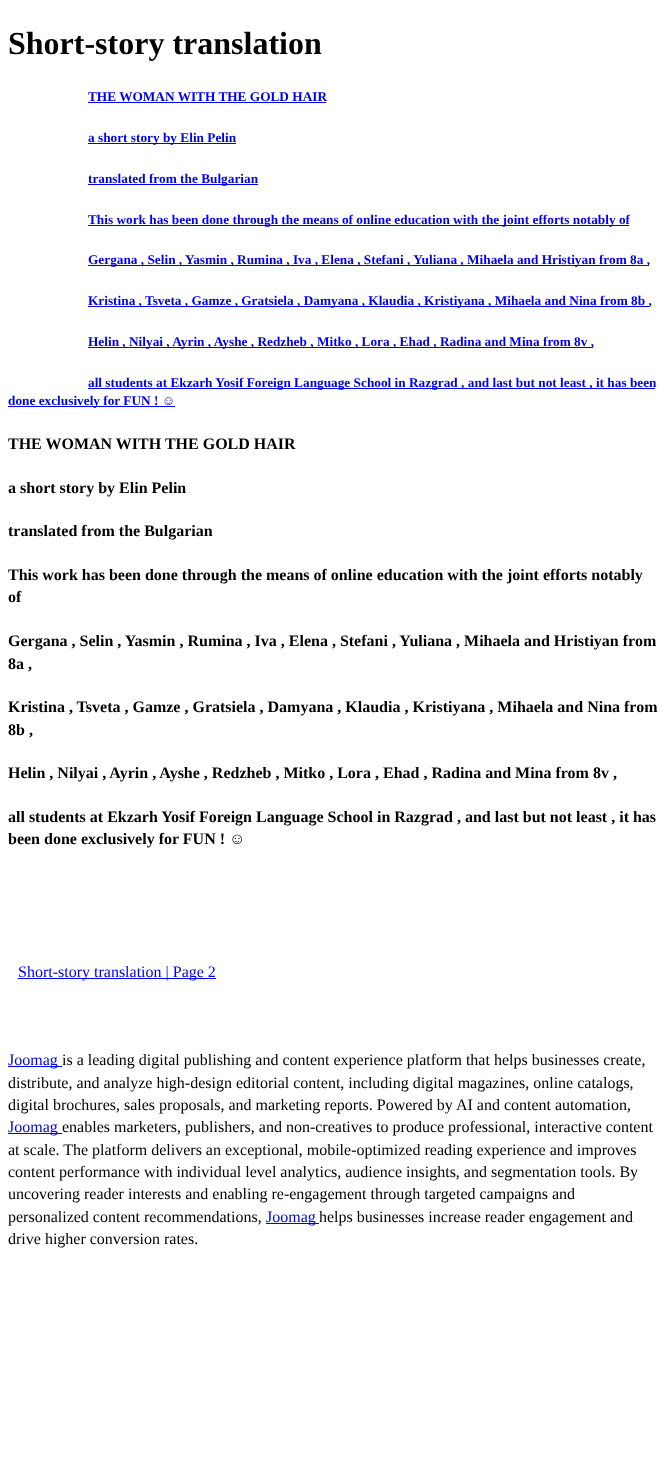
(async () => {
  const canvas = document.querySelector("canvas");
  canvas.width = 666;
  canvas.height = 1465;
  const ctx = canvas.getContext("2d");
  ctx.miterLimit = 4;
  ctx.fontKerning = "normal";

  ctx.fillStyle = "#ffffff";
  ctx.fillRect(0, 0, 666, 1465);
  for (const [x, y, w, h, color] of [
    [88, 102, 238, 1, "#0000ee"],
    [88, 143, 148, 1, "#0000ee"],
    [88, 184, 170, 1, "#0000ee"],
    [88, 225, 541, 1, "#0000ee"],
    [88, 265, 561, 1, "#0000ee"],
    [88, 306, 562, 1, "#0000ee"],
    [88, 347, 505, 1, "#0000ee"],
    [88, 388, 567, 1, "#0000ee"],
    [8, 406, 167, 1, "#0000ee"],
    [18, 978, 198, 1, "#0000ee"],
    [8, 1066, 54, 1, "#0000ee"],
    [8, 1133, 54, 1, "#0000ee"],
    [266, 1223, 53, 1, "#0000ee"],
  ]) {
    ctx.fillStyle = color;
    ctx.fillRect(x, y, w, h);
  }
  ctx.font = "bold 32px Liberation Serif";
  ctx.fillStyle = "#000000";
  ctx.fillText("Short-story translation", 8, 54);
  ctx.font = "bold 13.3px Liberation Serif";
  ctx.fillStyle = "#0000ee";
  for (const [text, x, y] of [
    ["THE WOMAN WITH THE GOLD HAIR", 88, 101],
    ["a short story by Elin Pelin", 88, 142],
    ["translated from the Bulgarian", 88, 183],
    ["This work has been done through the means of online education with the joint efforts notably of", 88, 224],
    ["Gergana , Selin , Yasmin , Rumina , Iva , Elena , Stefani , Yuliana , Mihaela and Hristiyan from 8a ,", 88, 264],
    ["Kristina , Tsveta , Gamze , Gratsiela , Damyana , Klaudia , Kristiyana , Mihaela and Nina from 8b ,", 88, 305],
    ["Helin , Nilyai , Ayrin , Ayshe , Redzheb , Mitko , Lora , Ehad , Radina and Mina from 8v ,", 88, 346],
    ["all students at Ekzarh Yosif Foreign Language School in Razgrad , and last but not least , it has been", 88, 387],
    ["done exclusively for FUN ! ☺", 8, 405],
  ]) {
    ctx.fillText(text, x, y);
  }
  ctx.font = "bold 16px Liberation Serif";
  ctx.fillStyle = "#000000";
  for (const [text, x, y] of [
    ["THE WOMAN WITH THE GOLD HAIR", 8, 449],
    ["a short story by Elin Pelin", 8, 493],
    ["translated from the Bulgarian", 8, 536],
    ["This work has been done through the means of online education with the joint efforts notably", 8, 580],
    ["of", 8, 602],
    ["Gergana , Selin , Yasmin , Rumina , Iva , Elena , Stefani , Yuliana , Mihaela and Hristiyan from", 8, 646],
    ["8a ,", 8, 669],
    ["Kristina , Tsveta , Gamze , Gratsiela , Damyana , Klaudia , Kristiyana , Mihaela and Nina from", 8, 712],
    ["8b ,", 8, 735],
    ["Helin , Nilyai , Ayrin , Ayshe , Redzheb , Mitko , Lora , Ehad , Radina and Mina from 8v ,", 8, 778],
    ["all students at Ekzarh Yosif Foreign Language School in Razgrad , and last but not least , it has", 8, 822],
    ["been done exclusively for FUN ! ☺", 8, 844],
  ]) {
    ctx.fillText(text, x, y);
  }
  ctx.font = "16px Liberation Serif";
  ctx.fillStyle = "#0000ee";
  ctx.fillText("Short-story translation | Page 2", 18, 977);
  ctx.fillText("Joomag", 8, 1065);
  ctx.fillStyle = "#000000";
  for (const [text, x, y] of [
    ["is a leading digital publishing and content experience platform that helps businesses create,", 62, 1065],
    ["distribute, and analyze high-design editorial content, including digital magazines, online catalogs,", 8, 1088],
    ["digital brochures, sales proposals, and marketing reports. Powered by AI and content automation,", 8, 1110],
  ]) {
    ctx.fillText(text, x, y);
  }
  ctx.fillStyle = "#0000ee";
  ctx.fillText("Joomag", 8, 1132);
  ctx.fillStyle = "#000000";
  for (const [text, x, y] of [
    ["enables marketers, publishers, and non-creatives to produce professional, interactive content", 62, 1132],
    ["at scale. The platform delivers an exceptional, mobile-optimized reading experience and improves", 8, 1155],
    ["content performance with individual level analytics, audience insights, and segmentation tools. By", 8, 1177],
    ["uncovering reader interests and enabling re-engagement through targeted campaigns and", 8, 1199],
    ["personalized content recommendations,", 8, 1222],
  ]) {
    ctx.fillText(text, x, y);
  }
  ctx.fillStyle = "#0000ee";
  ctx.fillText("Joomag", 266, 1222);
  ctx.fillStyle = "#000000";
  ctx.fillText("helps businesses increase reader engagement and", 319, 1222);
  ctx.fillText("drive higher conversion rates.", 8, 1244);
})();
